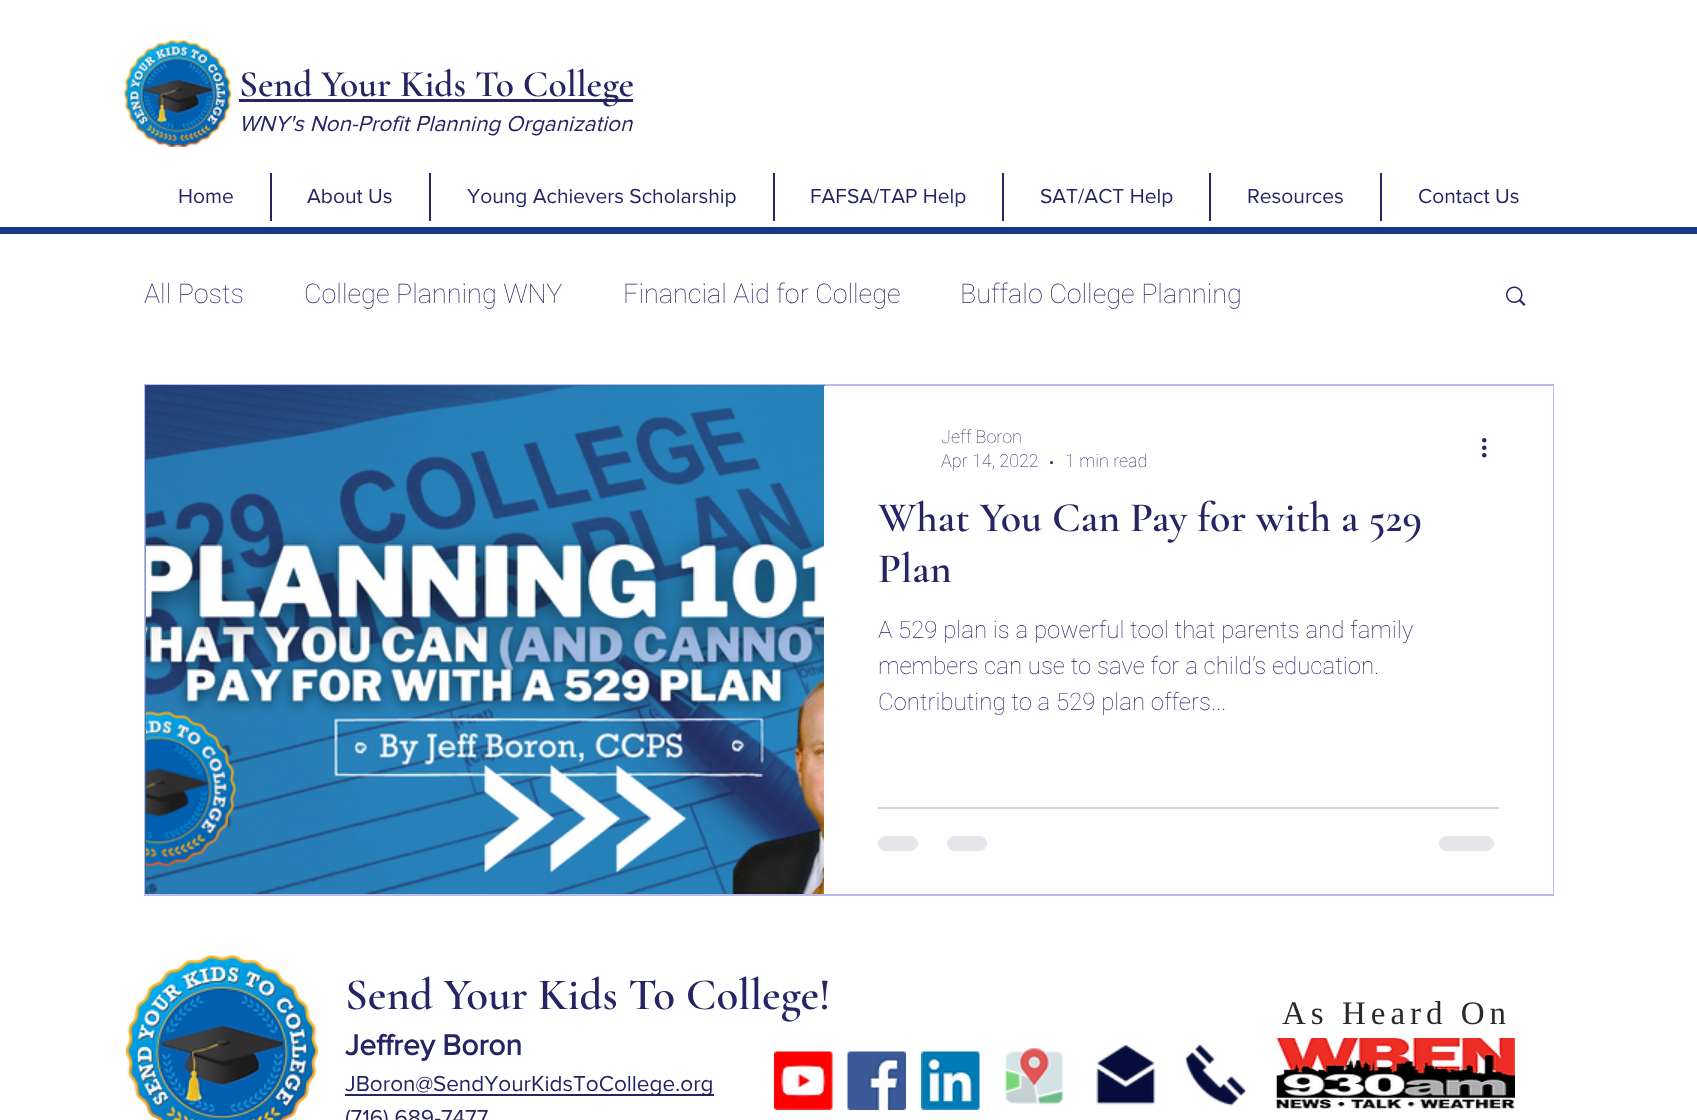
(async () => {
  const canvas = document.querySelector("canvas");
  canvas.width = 1697;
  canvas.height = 1120;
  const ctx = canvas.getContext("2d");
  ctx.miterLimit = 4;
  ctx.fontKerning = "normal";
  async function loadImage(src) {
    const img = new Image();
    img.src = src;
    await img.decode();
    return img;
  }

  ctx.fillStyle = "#ffffff";
  ctx.fillRect(0, 0, 1697, 1120);
  ctx.drawImage(await loadImage("img/1.png"), 124, 40, 108, 107);
  for (const [x, y, w, h, color] of [
    [239, 99, 394, 3, "#272464"],
    [270, 173, 2, 48, "#272464"],
    [429, 173, 2, 48, "#272464"],
    [773, 173, 2, 48, "#272464"],
    [1002, 173, 2, 48, "#272464"],
    [1209, 173, 2, 48, "#272464"],
    [1380, 173, 2, 48, "#272464"],
    [0, 227, 1697, 7, "#173981"],
  ]) {
    ctx.fillStyle = color;
    ctx.fillRect(x, y, w, h);
  }
  ctx.drawImage(await loadImage("img/2.png"), 1506, 286, 20, 20);
  ctx.strokeStyle = "#bcbae6";
  ctx.lineWidth = 2;
  ctx.strokeRect(145, 385, 1408, 510);
  ctx.drawImage(await loadImage("img/3.png"), 145, 385, 680, 509);
  ctx.drawImage(await loadImage("img/4.png"), 146, 386, 678, 508);
  ctx.fillStyle = "#ffffff";
  ctx.fillRect(824, 386, 729, 508);
  ctx.fillStyle = "#272464";
  ctx.beginPath();
  ctx.arc(1051.5, 462.5, 1.5, 0, Math.PI * 2);
  ctx.fill();
  ctx.drawImage(await loadImage("img/5.png"), 1482, 438, 5, 20);
  ctx.fillStyle = "#d4d3e0";
  ctx.fillRect(878, 807, 621, 2);
  ctx.fillStyle = "#e5e5ec";
  ctx.beginPath();
  ctx.roundRect(878, 836, 40, 15, 7.5);
  ctx.fill();
  ctx.beginPath();
  ctx.roundRect(947, 836, 40, 15, 7.5);
  ctx.fill();
  ctx.beginPath();
  ctx.roundRect(1439, 836, 55, 15, 7.5);
  ctx.fill();
  ctx.drawImage(await loadImage("img/6.png"), 126, 955, 192, 165);
  ctx.fillStyle = "#272464";
  ctx.fillRect(345, 1094, 369, 2);
  ctx.drawImage(await loadImage("img/7.png"), 1276, 1038, 239, 71);
  ctx.drawImage(await loadImage("img/8.png"), 774, 1051, 59, 59);
  ctx.drawImage(await loadImage("img/9.png"), 847, 1051, 59, 59);
  ctx.drawImage(await loadImage("img/10.png"), 921, 1051, 59, 59);
  ctx.drawImage(await loadImage("img/11.png"), 1004, 1047, 60, 58);
  ctx.drawImage(await loadImage("img/12.png"), 1096, 1044, 60, 61);
  ctx.drawImage(await loadImage("img/13.png"), 1185, 1044, 62, 62);
  ctx.font = "600 37.5px Cormorant Garamond";
  ctx.fillText("Send Your Kids To College", 239, 96);
  ctx.font = "italic 22.5px 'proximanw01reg'";
  ctx.fillText("WNY's Non-Profit Planning Organization", 239, 131);
  ctx.font = "21px 'proximanw01reg'";
  for (const [text, x, y] of [
    ["Home", 178, 203],
    ["About Us", 307, 203],
    ["Young Achievers Scholarship", 467, 203],
    ["FAFSA/TAP Help", 810, 203],
    ["SAT/ACT Help", 1040, 203],
    ["Resources", 1247, 203],
    ["Contact Us", 1418, 203],
  ]) {
    ctx.fillText(text, x, y);
  }
  ctx.font = "100 27px Roboto";
  for (const [text, x, y] of [
    ["All Posts", 144, 303],
    ["College Planning WNY", 304, 303],
    ["Financial Aid for College", 623, 303],
    ["Buffalo College Planning", 960, 303],
  ]) {
    ctx.fillText(text, x, y);
  }
  ctx.font = "100 18px Roboto";
  for (const [text, x, y] of [
    ["Jeff Boron", 941, 443],
    ["Apr 14, 2022", 941, 467],
    ["1 min read", 1065, 467],
  ]) {
    ctx.fillText(text, x, y);
  }
  ctx.font = "600 42px Cormorant Garamond";
  ctx.fillText("What You Can Pay for with a 529", 878, 531);
  ctx.fillText("Plan", 878, 582);
  ctx.font = "100 24px Roboto";
  for (const [text, x, y] of [
    ["A 529 plan is a powerful tool that parents and family", 878, 638],
    ["members can use to save for a child’s education.", 878, 674],
    ["Contributing to a 529 plan offers...", 878, 710],
  ]) {
    ctx.fillText(text, x, y);
  }
  ctx.font = "600 45px Cormorant Garamond";
  ctx.fillText("Send Your Kids To College!", 345, 1009);
  ctx.font = "bold 30px 'proximanw01reg'";
  ctx.fillText("Jeffrey Boron", 345, 1055);
  ctx.font = "22.5px 'proximanw01reg'";
  ctx.fillText("JBoron@SendYourKidsToCollege.org", 345, 1091);
  ctx.fillText("(716) 689-7477", 345, 1125);
  ctx.letterSpacing = "5px";
  ctx.font = "33px Liberation Serif";
  ctx.fillStyle = "#292929";
  ctx.fillText("As Heard On", 1282, 1024);
})();
